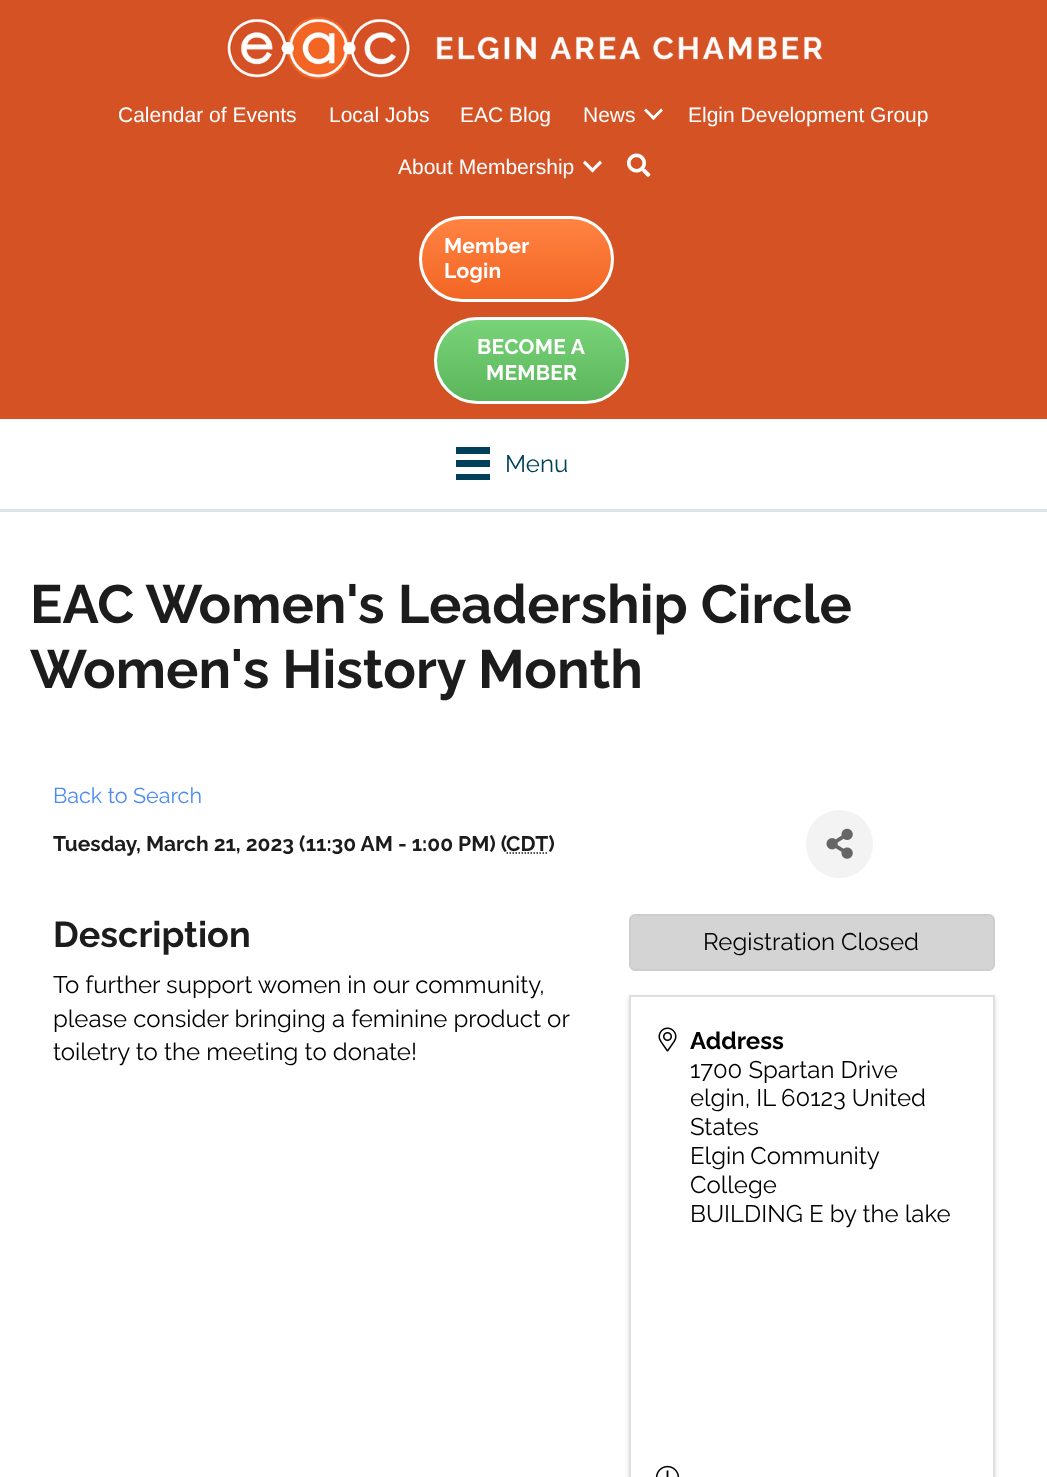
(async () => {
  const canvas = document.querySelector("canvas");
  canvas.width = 1047;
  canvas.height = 1477;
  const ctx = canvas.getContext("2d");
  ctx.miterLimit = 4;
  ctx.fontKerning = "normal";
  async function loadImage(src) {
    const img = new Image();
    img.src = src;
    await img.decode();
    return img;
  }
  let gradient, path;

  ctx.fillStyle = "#ffffff";
  ctx.fillRect(0, 0, 1047, 1477);
  ctx.fillStyle = "#d55225";
  ctx.fillRect(0, 0, 1047, 419);
  ctx.drawImage(await loadImage("img/1.png"), 226, 16, 597, 64);
  ctx.fillStyle = "#ffffff";
  path = new Path2D("M661 108.5L663 110.5L653.5 120L651.5 118Z");
  ctx.fill(path);
  path = new Path2D("M646 108.5L655.5 118L653.5 120L644 110.5Z");
  ctx.fill(path);
  path = new Path2D("M600 160.5L602 163L592.5 172.5L590.5 170Z");
  ctx.fill(path);
  path = new Path2D("M585 160.5L594.5 170L592.5 172.5L583 163Z");
  ctx.fill(path);
  ctx.drawImage(await loadImage("img/2.png"), 627, 153, 24, 24);
  ctx.save();
  ctx.beginPath();
  ctx.roundRect(419, 216, 195, 86, 43);
  ctx.clip();
  gradient = ctx.createLinearGradient(516, 219, 516, 299);
  gradient.addColorStop(0, "#ff8342");
  gradient.addColorStop(1, "#f26524");
  ctx.fillStyle = gradient;
  ctx.fillRect(419, 219, 195, 80);
  ctx.restore();
  ctx.beginPath();
  ctx.roundRect(420.5, 217.5, 192, 83, 41.5);
  ctx.strokeStyle = "#ffffff";
  ctx.lineWidth = 3;
  ctx.stroke();
  ctx.save();
  ctx.beginPath();
  ctx.roundRect(434, 317, 195, 87, 43.5);
  ctx.clip();
  gradient = ctx.createLinearGradient(531, 320, 531, 401);
  gradient.addColorStop(0, "#79d479");
  gradient.addColorStop(1, "#5bb65b");
  ctx.fillStyle = gradient;
  ctx.fillRect(434, 320, 195, 81);
  ctx.restore();
  ctx.beginPath();
  ctx.roundRect(435.5, 318.5, 192, 84, 42);
  ctx.stroke();
  for (const [x, y, w, h, color] of [
    [0, 509, 1047, 3, "#dbe4e8"],
    [456, 447, 34, 7, "#00405b"],
    [456, 460, 34, 7, "#00405b"],
    [456, 474, 34, 6, "#00405b"],
  ]) {
    ctx.fillStyle = color;
    ctx.fillRect(x, y, w, h);
  }
  path = new Path2D("M506.5 853H548.5");
  ctx.strokeStyle = "#1c1c1c";
  ctx.lineWidth = 1.5;
  ctx.setLineDash([1.5, 1.5]);
  ctx.stroke(path);
  ctx.fillStyle = "#f3f3f3";
  ctx.beginPath();
  ctx.roundRect(806, 810, 67, 68, 33.5);
  ctx.fill();
  ctx.drawImage(await loadImage("img/3.png"), 826, 828, 27, 31);
  ctx.fillStyle = "#d4d4d4";
  ctx.beginPath();
  ctx.roundRect(630, 915, 364, 55, 5);
  ctx.fill();
  ctx.strokeStyle = "#cdcdcd";
  ctx.lineWidth = 2;
  ctx.setLineDash([]);
  ctx.stroke();
  ctx.fillStyle = "rgba(0, 0, 0, 0.15)";
  ctx.filter = "blur(2.5px)";
  ctx.beginPath();
  ctx.rect(629, 998, 366, 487);
  ctx.fill();
  ctx.filter = "none";
  ctx.fillStyle = "#ffffff";
  ctx.beginPath();
  ctx.rect(630, 996, 364, 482);
  ctx.fill();
  ctx.strokeStyle = "#dfdfdf";
  ctx.stroke();
  ctx.drawImage(await loadImage("img/4.png"), 658, 1027, 19, 25);
  ctx.drawImage(await loadImage("img/5.png"), 655, 1465, 25, 12);
  ctx.font = "21px Liberation Sans";
  for (const [text, x, y] of [
    ["Calendar of Events", 118, 122],
    ["Local Jobs", 329, 122],
    ["EAC Blog", 460, 122],
    ["News", 583, 122],
    ["Elgin Development Group", 688, 122],
    ["About Membership", 398, 174],
  ]) {
    ctx.fillText(text, x, y);
  }
  ctx.letterSpacing = "0.25px";
  ctx.font = "bold 21px Raleway";
  for (const [text, x, y] of [
    ["Member", 444, 253],
    ["Login", 444, 278],
    ["BECOME A", 477, 354],
    ["MEMBER", 486, 380],
  ]) {
    ctx.fillText(text, x, y);
  }
  ctx.letterSpacing = "0px";
  ctx.font = "24px Raleway";
  ctx.fillStyle = "#00405b";
  ctx.fillText("Menu", 505, 472);
  ctx.font = "bold 54px Raleway";
  ctx.fillStyle = "#1c1c1c";
  ctx.fillText("EAC Women's Leadership Circle", 30, 623);
  ctx.fillText("Women's History Month", 30, 688);
  ctx.font = "21.5px Raleway";
  ctx.fillStyle = "#4c8bf5";
  ctx.fillText("Back to Search", 53, 803);
  ctx.font = "bold 21px Raleway";
  ctx.fillStyle = "#1c1c1c";
  ctx.fillText("Tuesday, March 21, 2023 (11:30 AM - 1:00 PM) (", 53, 851);
  ctx.fillText("CDT)", 506, 851);
  ctx.font = "bold 36px Raleway";
  ctx.fillText("Description", 53, 947);
  ctx.font = "24px Raleway";
  ctx.fillStyle = "#000000";
  for (const [text, x, y] of [
    ["To further support women in our community,", 53, 993],
    ["please consider bringing a feminine product or", 53, 1027],
    ["toiletry to the meeting to donate!", 53, 1060],
    ["Registration Closed", 703, 950],
  ]) {
    ctx.fillText(text, x, y);
  }
  ctx.font = "bold 24px Raleway";
  ctx.fillText("Address", 690, 1049);
  ctx.font = "24px Raleway";
  for (const [text, x, y] of [
    ["1700 Spartan Drive", 690, 1078],
    ["elgin, IL", 690, 1106],
    ["60123 United", 781, 1106],
    ["States", 690, 1135],
  ]) {
    ctx.fillText(text, x, y);
  }
  ctx.wordSpacing = "-1px";
  ctx.fillText("Elgin Community", 690, 1164);
  ctx.wordSpacing = "0px";
  ctx.fillText("College", 690, 1193);
  ctx.fillText("BUILDING E by the lake", 690, 1222);
})();
